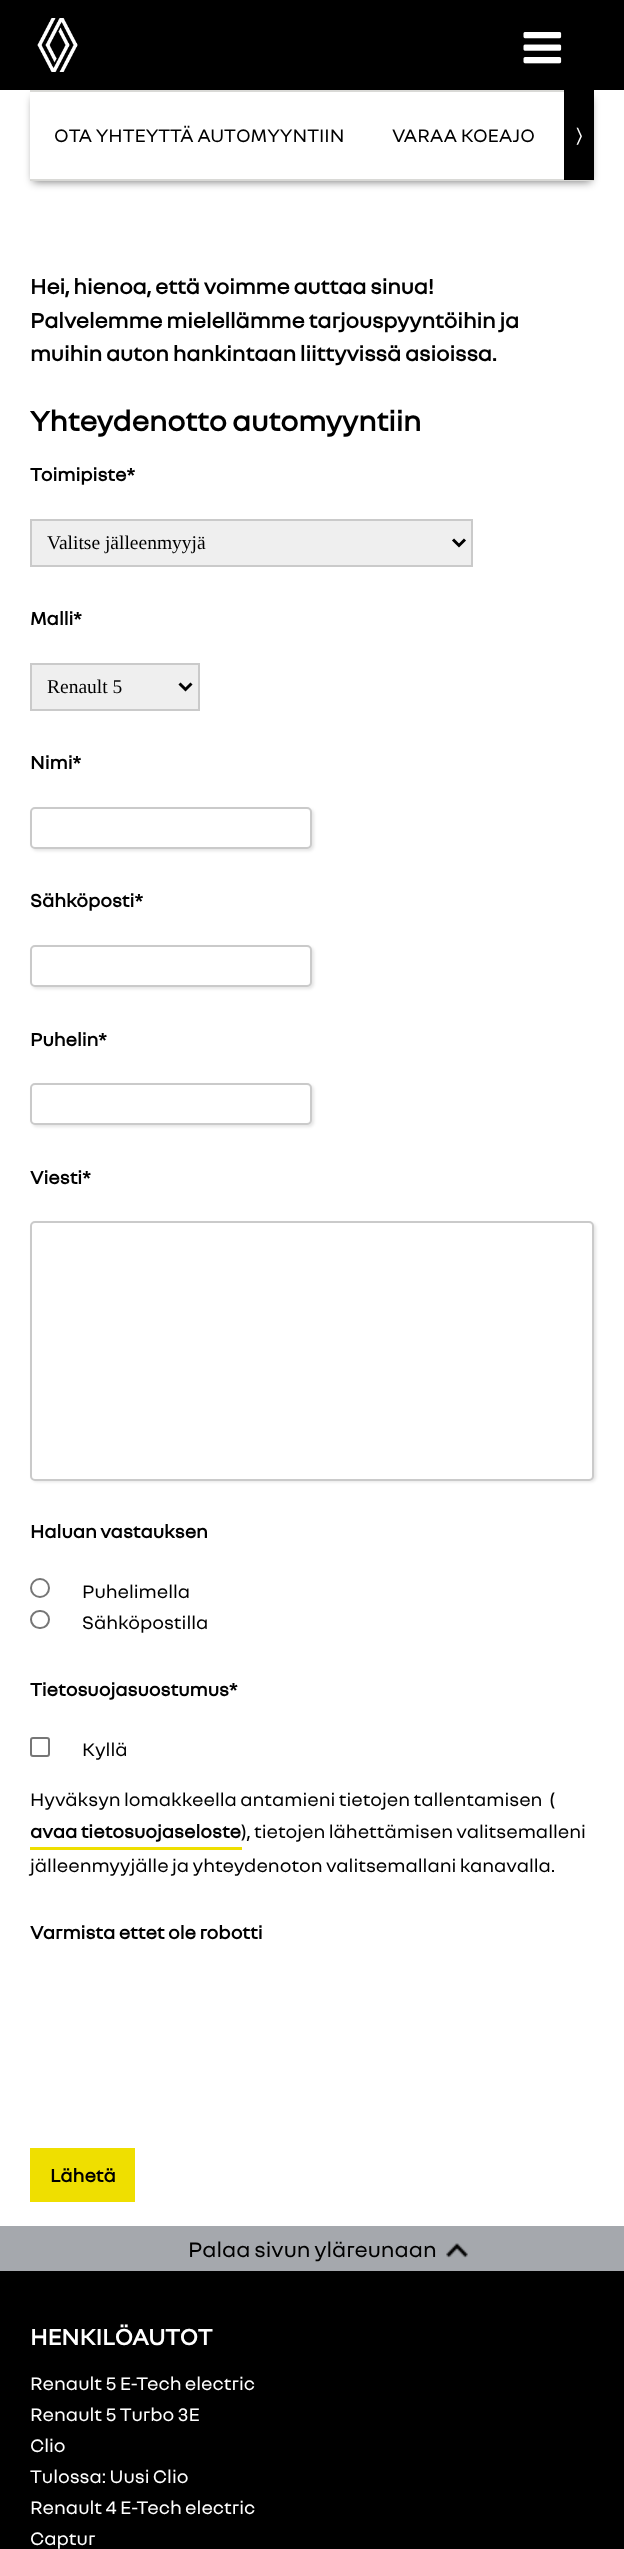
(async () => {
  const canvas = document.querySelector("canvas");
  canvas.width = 624;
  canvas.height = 2549;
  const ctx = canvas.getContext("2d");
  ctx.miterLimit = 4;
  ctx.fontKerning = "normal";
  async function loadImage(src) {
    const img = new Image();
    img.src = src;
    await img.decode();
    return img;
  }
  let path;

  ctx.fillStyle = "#ffffff";
  ctx.fillRect(0, 0, 624, 2549);
  ctx.fillStyle = "#000000";
  ctx.fillRect(0, 0, 624, 90);
  ctx.drawImage(await loadImage("img/1.png"), 37, 18, 41, 54);
  ctx.drawImage(await loadImage("img/2.png"), 523, 32, 39, 32);
  ctx.save();
  path = new Path2D("M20 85H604V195H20ZM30 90H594V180H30Z");
  ctx.clip(path, "evenodd");
  ctx.fillStyle = "rgba(0, 0, 0, 0.5)";
  ctx.filter = "blur(4px)";
  ctx.beginPath();
  ctx.rect(33, 98, 558, 84);
  ctx.fill();
  ctx.filter = "none";
  ctx.restore();
  for (const [x, y, w, h, color] of [
    [30, 90, 534, 2, "#d9d9d6"],
    [30, 179, 564, 2, "#d9d9d6"],
    [564, 90, 30, 90, "#000000"],
  ]) {
    ctx.fillStyle = color;
    ctx.fillRect(x, y, w, h);
  }
  ctx.fillStyle = "#efefef";
  ctx.beginPath();
  ctx.rect(31, 520, 441, 46);
  ctx.fill();
  ctx.strokeStyle = "#cacaca";
  ctx.lineWidth = 2;
  ctx.stroke();
  path = new Path2D("M453 539.5L459 545.5L465 539.5");
  ctx.strokeStyle = "#000000";
  ctx.lineWidth = 3;
  ctx.stroke(path);
  ctx.beginPath();
  ctx.rect(31, 664, 168, 46);
  ctx.fill();
  ctx.strokeStyle = "#cacaca";
  ctx.lineWidth = 2;
  ctx.stroke();
  path = new Path2D("M179.5 683.5L185.5 689.5L191.5 683.5");
  ctx.strokeStyle = "#000000";
  ctx.lineWidth = 3;
  ctx.stroke(path);
  ctx.fillStyle = "rgba(0, 0, 0, 0.1)";
  ctx.filter = "blur(1.5px)";
  ctx.beginPath();
  ctx.roundRect(32, 809, 282, 42, 5);
  ctx.fill();
  ctx.filter = "none";
  ctx.fillStyle = "#ffffff";
  ctx.beginPath();
  ctx.roundRect(31, 808, 280, 40, 4);
  ctx.fill();
  ctx.strokeStyle = "#cacaca";
  ctx.lineWidth = 2;
  ctx.stroke();
  ctx.fillStyle = "rgba(0, 0, 0, 0.1)";
  ctx.filter = "blur(1.5px)";
  ctx.beginPath();
  ctx.roundRect(32, 947, 282, 42, 5);
  ctx.fill();
  ctx.filter = "none";
  ctx.fillStyle = "#ffffff";
  ctx.beginPath();
  ctx.roundRect(31, 946, 280, 40, 4);
  ctx.fill();
  ctx.stroke();
  ctx.fillStyle = "rgba(0, 0, 0, 0.1)";
  ctx.filter = "blur(1.5px)";
  ctx.beginPath();
  ctx.roundRect(32, 1085, 282, 42, 5);
  ctx.fill();
  ctx.filter = "none";
  ctx.fillStyle = "#ffffff";
  ctx.beginPath();
  ctx.roundRect(31, 1084, 280, 40, 4);
  ctx.fill();
  ctx.stroke();
  ctx.fillStyle = "rgba(0, 0, 0, 0.1)";
  ctx.filter = "blur(1.5px)";
  ctx.beginPath();
  ctx.roundRect(32, 1223, 564, 259, 5);
  ctx.fill();
  ctx.filter = "none";
  ctx.fillStyle = "#ffffff";
  ctx.beginPath();
  ctx.roundRect(31, 1222, 562, 258, 4);
  ctx.fill();
  ctx.stroke();
  ctx.beginPath();
  ctx.arc(40, 1588, 9, 0, Math.PI * 2);
  ctx.strokeStyle = "#767676";
  ctx.stroke();
  ctx.beginPath();
  ctx.roundRect(31, 1611, 18, 17, 8.5);
  ctx.stroke();
  ctx.beginPath();
  ctx.roundRect(31, 1738, 18, 18, 2);
  ctx.stroke();
  for (const [x, y, w, h, color] of [
    [30, 1847, 212, 3, "#efdf00"],
    [30, 2148, 105, 54, "#efdf00"],
    [0, 2226, 624, 45, "#a5a8ad"],
  ]) {
    ctx.fillStyle = color;
    ctx.fillRect(x, y, w, h);
  }
  ctx.drawImage(await loadImage("img/3.png"), 446, 2243, 22, 15);
  ctx.fillStyle = "#000000";
  ctx.fillRect(0, 2271, 624, 278);
  ctx.font = "19.5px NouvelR";
  ctx.fillText("OTA YHTEYTTÄ AUTOMYYNTIIN", 54, 142);
  ctx.fillText("VARAA KOEAJO", 392, 142);
  ctx.font = "19.5px FreeSans";
  ctx.fillStyle = "#ffffff";
  ctx.fillText("〉", 576, 142);
  ctx.font = "bold 22.4px NouvelR";
  ctx.fillStyle = "#000000";
  for (const [text, x, y] of [
    ["Hei, hienoa, että voimme auttaa sinua!", 30, 294],
    ["Palvelemme mielellämme tarjouspyyntöihin ja", 30, 328],
    ["muihin auton hankintaan liittyvissä asioissa.", 30, 361],
  ]) {
    ctx.fillText(text, x, y);
  }
  ctx.font = "bold 30px NouvelR";
  ctx.fillText("Yhteydenotto automyyntiin", 30, 431);
  ctx.font = "bold 19.5px NouvelR";
  ctx.fillText("Toimipiste*", 30, 481);
  ctx.font = "19.5px Liberation Serif";
  ctx.fillText("Valitse jälleenmyyjä", 47, 549);
  ctx.font = "bold 19.5px NouvelR";
  ctx.fillText("Malli*", 30, 625);
  ctx.font = "19.5px Liberation Serif";
  ctx.fillText("Renault 5", 47, 693);
  ctx.font = "bold 19.5px NouvelR";
  for (const [text, x, y] of [
    ["Nimi*", 30, 769],
    ["Sähköposti*", 30, 907],
    ["Puhelin*", 30, 1046],
    ["Viesti*", 30, 1184],
    ["Haluan vastauksen", 30, 1538],
  ]) {
    ctx.fillText(text, x, y);
  }
  ctx.font = "19.5px NouvelR";
  ctx.fillText("Puhelimella", 82, 1598);
  ctx.fillText("Sähköpostilla", 82, 1629);
  ctx.font = "bold 19.5px NouvelR";
  ctx.fillText("Tietosuojasuostumus*", 30, 1696);
  ctx.font = "19.5px NouvelR";
  ctx.fillText("Kyllä", 82, 1756);
  ctx.fillText("Hyväksyn lomakkeella antamieni tietojen tallentamisen  (", 30, 1806);
  ctx.font = "bold 19.5px NouvelR";
  ctx.fillText("avaa tietosuojaseloste", 30, 1838);
  ctx.font = "19.5px NouvelR";
  ctx.fillText("), tietojen lähettämisen valitsemalleni", 241, 1838);
  ctx.fillText("jälleenmyyjälle ja yhteydenoton valitsemallani kanavalla.", 30, 1872);
  ctx.font = "bold 19.5px NouvelR";
  ctx.fillText("Varmista ettet ole robotti", 30, 1939);
  ctx.fillText("Lähetä", 50, 2182);
  ctx.font = "22.5px NouvelR";
  ctx.fillText("Palaa sivun yläreunaan", 188, 2257);
  ctx.font = "bold 24px NouvelR";
  ctx.fillStyle = "#ffffff";
  ctx.fillText("HENKILÖAUTOT", 30, 2345);
  ctx.font = "19.5px NouvelR";
  for (const [text, x, y] of [
    ["Renault 5 E-Tech electric", 30, 2390],
    ["Renault 5 Turbo 3E", 30, 2421],
    ["Clio", 30, 2452],
    ["Tulossa: Uusi Clio", 30, 2483],
    ["Renault 4 E-Tech electric", 30, 2514],
    ["Captur", 30, 2545],
  ]) {
    ctx.fillText(text, x, y);
  }
})();
